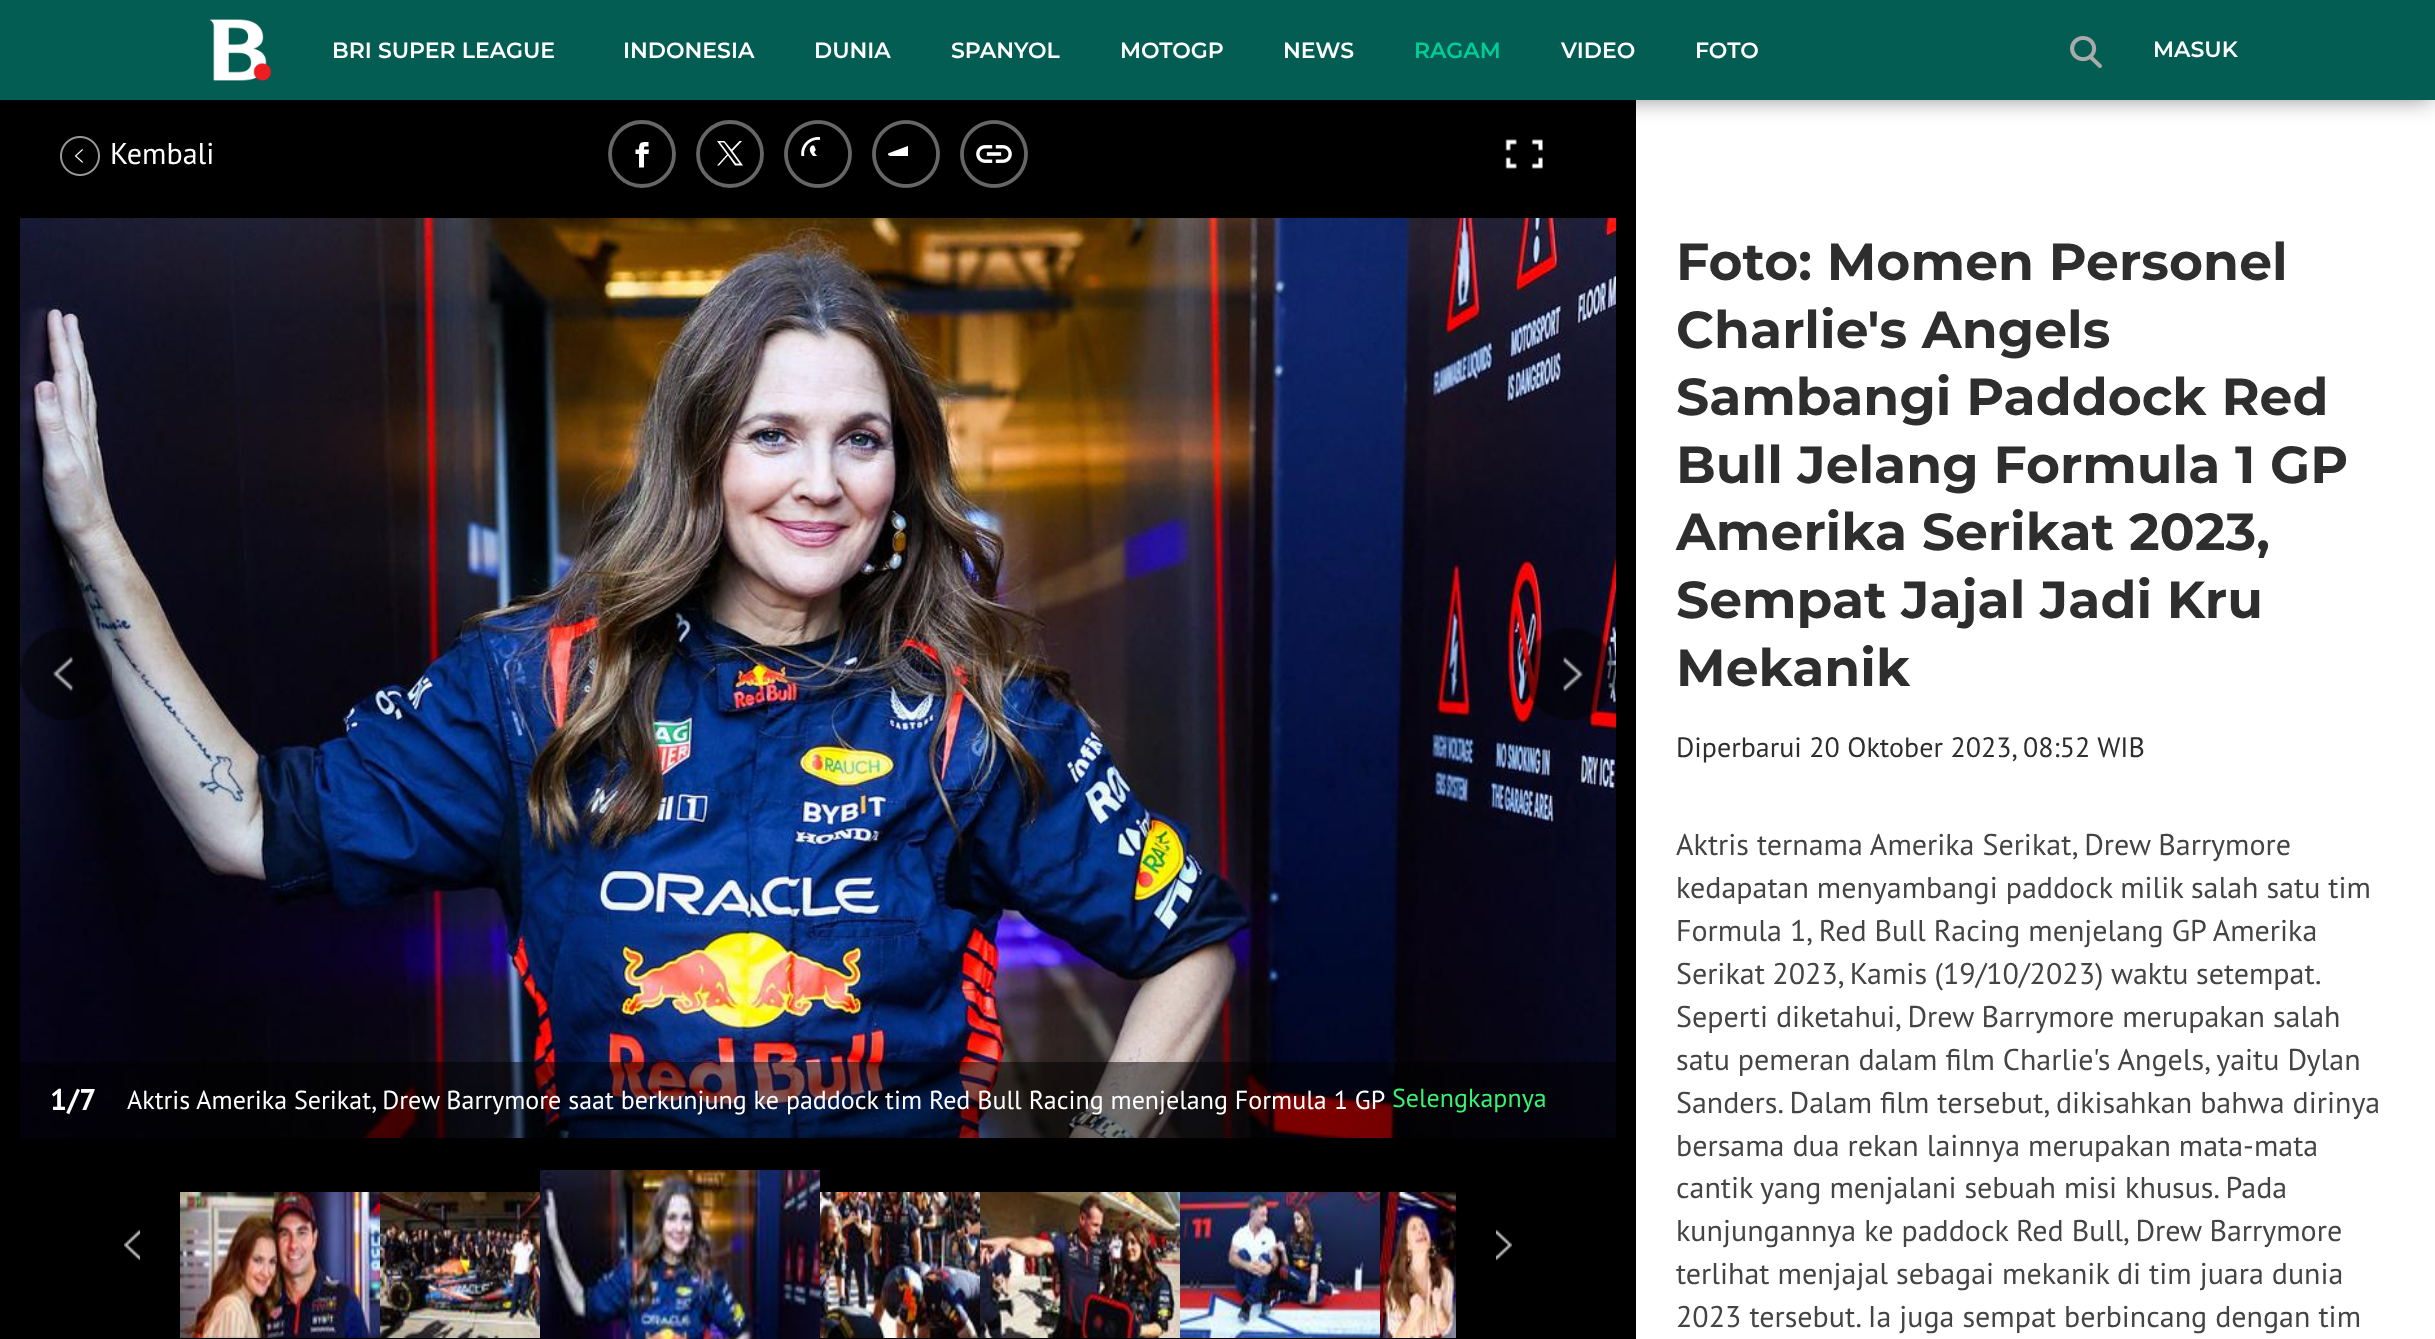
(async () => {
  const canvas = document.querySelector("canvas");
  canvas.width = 2435;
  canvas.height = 1339;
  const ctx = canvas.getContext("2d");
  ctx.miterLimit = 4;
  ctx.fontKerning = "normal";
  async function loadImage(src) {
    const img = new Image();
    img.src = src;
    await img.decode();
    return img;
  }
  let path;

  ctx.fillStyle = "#ffffff";
  ctx.fillRect(0, 0, 2435, 1339);
  ctx.fillStyle = "#000000";
  ctx.fillRect(0, 100, 1636, 1239);
  ctx.beginPath();
  ctx.arc(642, 154, 32, 0, Math.PI * 2);
  ctx.strokeStyle = "#666666";
  ctx.lineWidth = 3.8;
  ctx.stroke();
  path = new Path2D("M730 186C747.5 186 762 171.5 762 154C762 136.5 747.5 122 730 122C712.5 122 698 136.5 698 154C698 171.5 712.5 186 730 186Z");
  ctx.stroke(path);
  ctx.drawImage(await loadImage("img/4.png"), 784, 120, 68, 68);
  ctx.drawImage(await loadImage("img/5.png"), 872, 120, 68, 68);
  ctx.drawImage(await loadImage("img/6.png"), 960, 120, 68, 68);
  ctx.fillStyle = "rgba(0, 0, 0, 0.5)";
  ctx.filter = "blur(12px)";
  ctx.beginPath();
  ctx.rect(4, 6, 2428, 92);
  ctx.fill();
  ctx.filter = "none";
  ctx.fillStyle = "#035d53";
  ctx.fillRect(0, 0, 2435, 100);
  ctx.drawImage(await loadImage("img/1.png"), 209, 19, 63, 62);
  ctx.drawImage(await loadImage("img/2.png"), 2070, 36, 32, 32);
  ctx.drawImage(await loadImage("img/3.png"), 60, 136, 40, 40);
  ctx.fillStyle = "#ffffff";
  path = new Path2D("M649 149.5H644C644 145.5 644.5 146.5 648.5 146.5V142C641.5 142 639 141.5 639 149.5H635.5V154H639V167.5H644V154H648.5Z");
  ctx.fill(path, "evenodd");
  path = new Path2D("M717 141L727 154.5L717 165.5H719L728 155.5L735 165.5H743L732.5 151L742 141H739.5L731.5 149.5L724.5 141ZM720 142.5H724L739.5 163.5H736Z");
  ctx.fill(path);
  ctx.drawImage(await loadImage("img/7.png"), 1505, 139, 38, 30);
  ctx.drawImage(await loadImage("img/10.png"), 20, 218, 1596, 920);
  ctx.drawImage(await loadImage("img/8.png"), 20, 628, 92, 92);
  ctx.drawImage(await loadImage("img/9.png"), 1524, 628, 92, 92);
  ctx.fillStyle = "rgba(0, 0, 0, 0.5)";
  ctx.fillRect(20, 1062, 1596, 76);
  ctx.drawImage(await loadImage("img/11.png"), 124, 1230, 16, 30);
  ctx.drawImage(await loadImage("img/12.png"), 180, 1192, 200, 146);
  ctx.drawImage(await loadImage("img/13.png"), 380, 1192, 160, 146);
  ctx.drawImage(await loadImage("img/14.png"), 540, 1170, 280, 169);
  ctx.drawImage(await loadImage("img/15.png"), 820, 1192, 160, 146);
  ctx.drawImage(await loadImage("img/16.png"), 980, 1192, 200, 146);
  ctx.drawImage(await loadImage("img/17.png"), 1180, 1192, 200, 146);
  ctx.drawImage(await loadImage("img/18.png"), 1380, 1192, 76, 146);
  ctx.drawImage(await loadImage("img/19.png"), 1496, 1230, 16, 30);
  ctx.font = "600 22px Montserrat";
  ctx.fillStyle = "#ffffff";
  for (const [text, x, y] of [
    ["BRI SUPER LEAGUE", 332, 58],
    ["INDONESIA", 623, 58],
    ["DUNIA", 814, 58],
    ["SPANYOL", 951, 58],
    ["MOTOGP", 1120, 58],
    ["NEWS", 1283, 58],
  ]) {
    ctx.fillText(text, x, y);
  }
  ctx.fillStyle = "#00ce97";
  ctx.fillText("RAGAM", 1414, 58);
  ctx.fillStyle = "#ffffff";
  for (const [text, x, y] of [
    ["VIDEO", 1561, 58],
    ["FOTO", 1695, 58],
    ["MASUK", 2153, 57],
  ]) {
    ctx.fillText(text, x, y);
  }
  ctx.font = "30px PT Sans";
  ctx.fillText("Kembali", 110, 164);
  ctx.font = "bold 30px PT Sans";
  ctx.fillText("1/7", 50, 1110);
  ctx.font = "26px PT Sans";
  ctx.fillText("Aktris Amerika Serikat, Drew Barrymore saat berkunjung ke paddock tim Red Bull Racing menjelang Formula 1 GP", 127, 1109);
  ctx.fillStyle = "#37f372";
  ctx.fillText("Selengkapnya", 1392, 1107);
  ctx.font = "bold 52px Montserrat";
  ctx.fillStyle = "#2e2e2e";
  for (const [text, x, y] of [
    ["Foto: Momen Personel", 1676, 280],
    ["Charlie's Angels", 1676, 348],
    ["Sambangi Paddock Red", 1676, 415],
    ["Bull Jelang Formula 1 GP", 1676, 483],
    ["Amerika Serikat 2023,", 1676, 550],
    ["Sempat Jajal Jadi Kru", 1676, 618],
    ["Mekanik", 1676, 686],
  ]) {
    ctx.fillText(text, x, y);
  }
  ctx.font = "28px PT Sans";
  ctx.fillText("Diperbarui 20 Oktober 2023, 08:52 WIB", 1676, 757);
  ctx.font = "30px PT Sans";
  ctx.fillStyle = "#444444";
  for (const [text, x, y] of [
    ["Aktris ternama Amerika Serikat, Drew Barrymore", 1676, 855],
    ["kedapatan menyambangi paddock milik salah satu tim", 1676, 898],
    ["Formula 1, Red Bull Racing menjelang GP Amerika", 1676, 941],
  ]) {
    ctx.fillText(text, x, y);
  }
  ctx.wordSpacing = "-0.5px";
  ctx.fillText("Serikat 2023, Kamis (19/10/2023) waktu setempat.", 1676, 984);
  ctx.wordSpacing = "0px";
  for (const [text, x, y] of [
    ["Seperti diketahui, Drew Barrymore merupakan salah", 1676, 1027],
    ["satu pemeran dalam film Charlie's Angels, yaitu Dylan", 1676, 1070],
    ["Sanders. Dalam film tersebut, dikisahkan bahwa dirinya", 1676, 1113],
    ["bersama dua rekan lainnya merupakan mata-mata", 1676, 1156],
    ["cantik yang menjalani sebuah misi khusus. Pada", 1676, 1198],
    ["kunjungannya ke paddock Red Bull, Drew Barrymore", 1676, 1241],
    ["terlihat menjajal sebagai mekanik di tim juara dunia", 1676, 1284],
    ["2023 tersebut. Ia juga sempat berbincang dengan tim", 1676, 1327],
  ]) {
    ctx.fillText(text, x, y);
  }
})();
